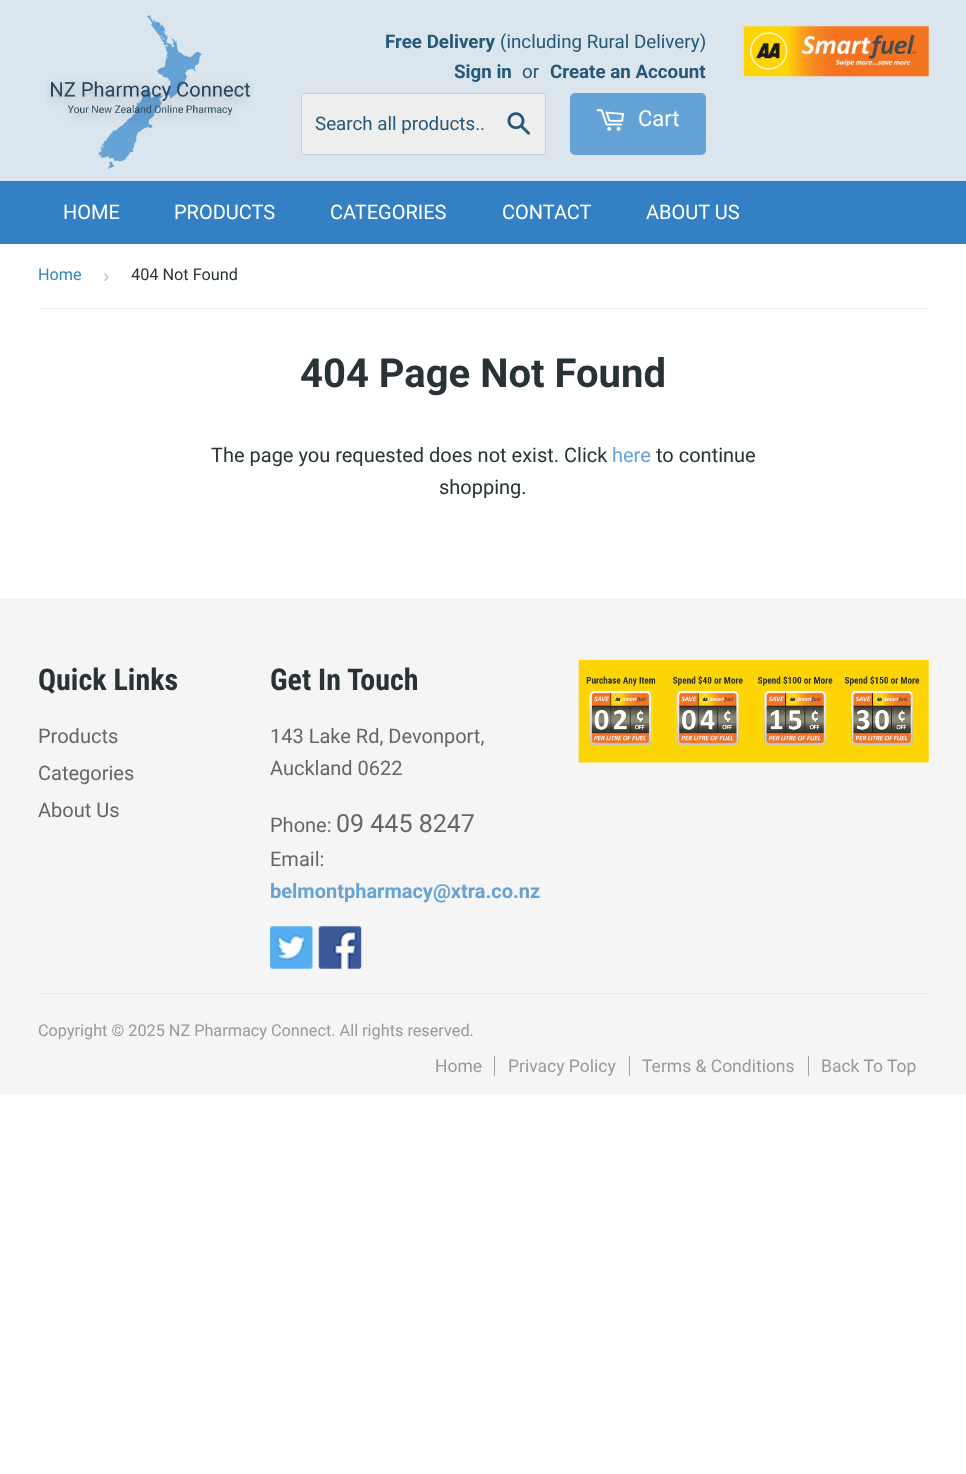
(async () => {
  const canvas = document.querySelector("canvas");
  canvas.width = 966;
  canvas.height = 1474;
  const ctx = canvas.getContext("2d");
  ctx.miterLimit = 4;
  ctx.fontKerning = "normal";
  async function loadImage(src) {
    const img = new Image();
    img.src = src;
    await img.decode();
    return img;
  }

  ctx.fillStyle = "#ffffff";
  ctx.fillRect(0, 0, 966, 1474);
  ctx.fillStyle = "#dae5ee";
  ctx.fillRect(0, 0, 966, 181);
  ctx.drawImage(await loadImage("img/1.png"), 46, 15, 207, 155);
  ctx.fillStyle = "#eeeeee";
  ctx.beginPath();
  ctx.roundRect(301.5, 93.5, 244, 61, 2);
  ctx.fill();
  ctx.strokeStyle = "#cccccc";
  ctx.stroke();
  ctx.drawImage(await loadImage("img/2.png"), 507, 112, 23, 23);
  ctx.fillStyle = "#65a2d6";
  ctx.beginPath();
  ctx.roundRect(570, 93, 136, 62, 5);
  ctx.fill();
  ctx.drawImage(await loadImage("img/3.png"), 596, 109, 28, 22);
  ctx.drawImage(await loadImage("img/4.png"), 743, 26, 186, 51);
  for (const [x, y, w, h, color] of [
    [0, 181, 966, 63, "#3381c4"],
    [38, 308, 891, 1, "#eeeeee"],
    [0, 598, 966, 496, "#f5f5f5"],
  ]) {
    ctx.fillStyle = color;
    ctx.fillRect(x, y, w, h);
  }
  ctx.drawImage(await loadImage("img/5.png"), 270, 926, 43, 43);
  ctx.drawImage(await loadImage("img/6.png"), 318, 926, 44, 43);
  ctx.drawImage(await loadImage("img/7.png"), 578, 660, 351, 103);
  for (const [x, y, w, h, color] of [
    [38, 993, 891, 1, "#e8e8e8"],
    [494, 1056, 1, 20, "#a5a5a5"],
    [629, 1056, 1, 20, "#a5a5a5"],
    [808, 1056, 1, 20, "#a5a5a5"],
  ]) {
    ctx.fillStyle = color;
    ctx.fillRect(x, y, w, h);
  }
  ctx.font = "bold 18.75px Roboto";
  ctx.fillStyle = "#245778";
  ctx.fillText("Free Delivery", 385, 48);
  ctx.font = "18.75px Roboto";
  ctx.fillText("(including Rural Delivery)", 500, 48);
  ctx.font = "bold 18.75px Roboto";
  ctx.fillText("Sign in", 454, 78);
  ctx.font = "18.75px Roboto";
  ctx.fillText("or", 522, 78);
  ctx.font = "bold 18.75px Roboto";
  ctx.fillText("Create an Account", 550, 78);
  ctx.font = "18.75px Roboto";
  ctx.fillText("Search all products..", 315, 130);
  ctx.font = "22px Roboto";
  ctx.fillStyle = "#ffffff";
  ctx.fillText("Cart", 638, 126);
  ctx.font = "20px Roboto";
  for (const [text, x, y] of [
    ["HOME", 63, 219],
    ["PRODUCTS", 174, 219],
    ["CATEGORIES", 330, 219],
    ["CONTACT", 502, 219],
    ["ABOUT US", 646, 219],
  ]) {
    ctx.fillText(text, x, y);
  }
  ctx.font = "16.25px Roboto";
  ctx.fillStyle = "#3185c0";
  ctx.fillText("Home", 38, 280);
  ctx.font = "18.75px Liberation Sans";
  ctx.fillStyle = "#bbbbbb";
  ctx.fillText("›", 103, 282);
  ctx.font = "16.25px Roboto";
  ctx.fillStyle = "#283336";
  ctx.fillText("404 Not Found", 131, 280);
  ctx.font = "bold 40px Roboto";
  ctx.fillText("404 Page Not Found", 300, 387);
  ctx.font = "20px Roboto";
  ctx.fillText("The page you requested does not exist. Click", 211, 462);
  ctx.fillStyle = "#65a2d6";
  ctx.fillText("here", 612, 462);
  ctx.fillStyle = "#283336";
  ctx.fillText("to continue", 656, 462);
  ctx.fillText("shopping.", 439, 494);
  ctx.font = "bold 30px Roboto Condensed";
  ctx.fillText("Quick Links", 38, 690);
  ctx.font = "20px Roboto";
  ctx.fillStyle = "#666666";
  for (const [text, x, y] of [
    ["Products", 38, 743],
    ["Categories", 38, 780],
    ["About Us", 38, 817],
  ]) {
    ctx.fillText(text, x, y);
  }
  ctx.font = "bold 30px Roboto Condensed";
  ctx.fillStyle = "#283336";
  ctx.fillText("Get In Touch", 270, 690);
  ctx.font = "20px Roboto";
  ctx.fillStyle = "#666666";
  for (const [text, x, y] of [
    ["143 Lake Rd, Devonport,", 270, 743],
    ["Auckland 0622", 270, 775],
    ["Phone:", 270, 832],
  ]) {
    ctx.fillText(text, x, y);
  }
  ctx.font = "25px Roboto";
  ctx.fillText("09 445 8247", 336, 832);
  ctx.font = "20px Roboto";
  ctx.fillText("Email:", 270, 866);
  ctx.font = "bold 20px Roboto";
  ctx.fillStyle = "#65a2d6";
  ctx.fillText("belmontpharmacy@xtra.co.nz", 270, 898);
  ctx.font = "16.25px Roboto";
  ctx.fillStyle = "#999999";
  ctx.fillText("Copyright © 2025 NZ Pharmacy Connect. All rights reserved.", 38, 1036);
  ctx.font = "17.5px Roboto";
  for (const [text, x, y] of [
    ["Home", 435, 1072],
    ["Privacy Policy", 508, 1072],
    ["Terms & Conditions", 642, 1072],
    ["Back To Top", 821, 1072],
  ]) {
    ctx.fillText(text, x, y);
  }
})();
